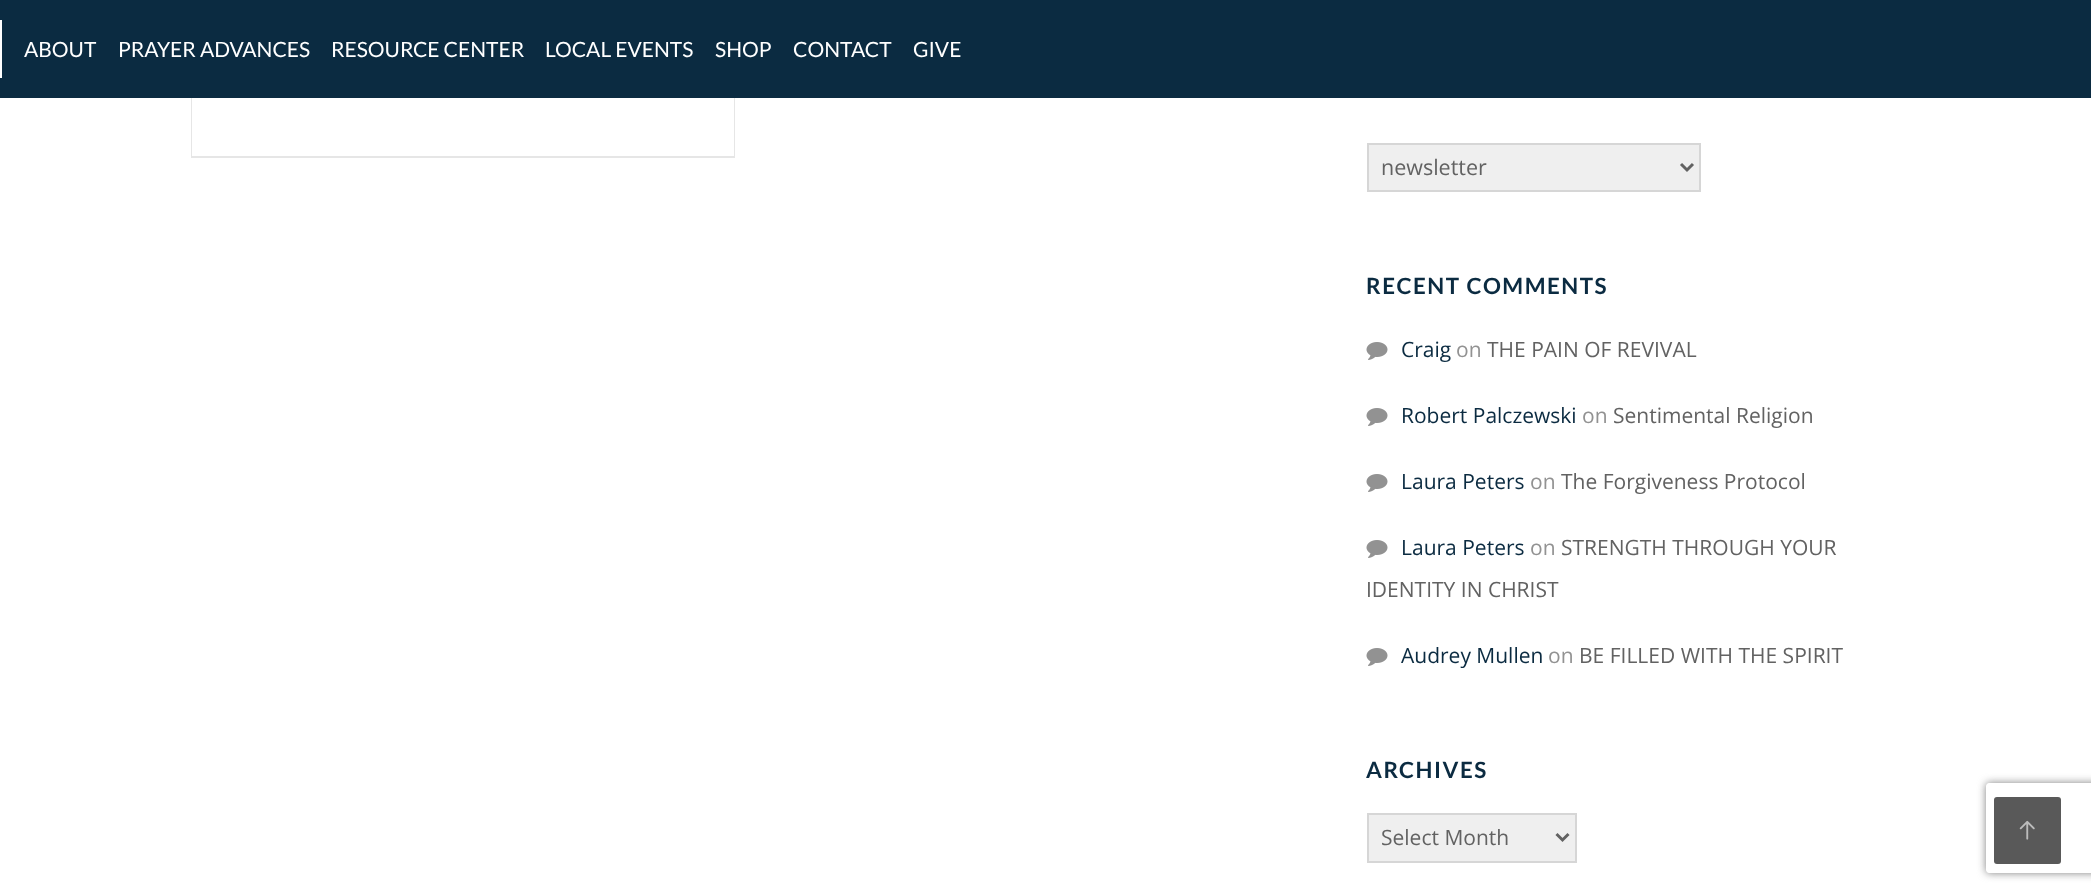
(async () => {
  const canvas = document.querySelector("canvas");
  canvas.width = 2091;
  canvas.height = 894;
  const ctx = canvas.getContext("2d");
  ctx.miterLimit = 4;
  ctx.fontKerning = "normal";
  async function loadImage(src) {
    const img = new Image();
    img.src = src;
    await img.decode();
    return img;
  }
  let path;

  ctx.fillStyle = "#ffffff";
  ctx.fillRect(0, 0, 2091, 894);
  ctx.strokeStyle = "#e6e6e6";
  ctx.lineWidth = 2;
  ctx.strokeRect(192, -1, 542, 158);
  for (const [x, y, w, h, color] of [
    [0, 0, 2091, 98, "#0b2b41"],
    [0, 20, 2, 58, "#ffffff"],
    [192, 98, 542, 58, "#ffffff"],
  ]) {
    ctx.fillStyle = color;
    ctx.fillRect(x, y, w, h);
  }
  ctx.fillStyle = "#efefef";
  ctx.beginPath();
  ctx.rect(1368, 144, 332, 47);
  ctx.fill();
  ctx.strokeStyle = "#d6d6d6";
  ctx.stroke();
  path = new Path2D("M1681 164L1687 170L1693 164");
  ctx.strokeStyle = "#626262";
  ctx.lineWidth = 3;
  ctx.stroke(path);
  ctx.drawImage(await loadImage("img/1.png"), 1366, 342, 22, 18);
  ctx.drawImage(await loadImage("img/1.png"), 1366, 408, 22, 18);
  ctx.drawImage(await loadImage("img/1.png"), 1366, 474, 22, 18);
  ctx.drawImage(await loadImage("img/1.png"), 1366, 540, 22, 18);
  ctx.drawImage(await loadImage("img/1.png"), 1366, 648, 22, 18);
  ctx.beginPath();
  ctx.rect(1368, 814, 208, 48);
  ctx.fill();
  ctx.strokeStyle = "#d6d6d6";
  ctx.lineWidth = 2;
  ctx.stroke();
  path = new Path2D("M1556.5 834L1562.5 840L1568.5 834");
  ctx.strokeStyle = "#626262";
  ctx.lineWidth = 3;
  ctx.stroke(path);
  ctx.save();
  path = new Path2D("M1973 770H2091V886H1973ZM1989 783H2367C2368.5 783 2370 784.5 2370 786V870C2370 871.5 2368.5 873 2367 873H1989C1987.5 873 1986 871.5 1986 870V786C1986 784.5 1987.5 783 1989 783Z");
  ctx.clip(path, "evenodd");
  ctx.fillStyle = "#808080";
  ctx.filter = "blur(4px)";
  ctx.beginPath();
  ctx.roundRect(1986, 783, 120, 90, 3);
  ctx.fill();
  ctx.filter = "none";
  ctx.restore();
  ctx.fillStyle = "#595959";
  ctx.beginPath();
  ctx.roundRect(1994, 797, 67, 67, 3);
  ctx.fill();
  ctx.drawImage(await loadImage("img/2.png"), 2019, 820, 16, 20);
  ctx.font = "21px Lato";
  ctx.fillStyle = "#ffffff";
  for (const [text, x, y] of [
    ["ABOUT", 24, 57],
    ["PRAYER ADVANCES", 118, 57],
    ["RESOURCE CENTER", 331, 57],
    ["LOCAL EVENTS", 545, 57],
    ["SHOP", 715, 57],
    ["CONTACT", 793, 57],
    ["GIVE", 913, 57],
  ]) {
    ctx.fillText(text, x, y);
  }
  ctx.font = "21.5px Open Sans";
  ctx.fillStyle = "#626262";
  ctx.fillText("newsletter", 1381, 175);
  ctx.letterSpacing = "1.5px";
  ctx.font = "bold 22.4px Lato";
  ctx.fillStyle = "#0b2b41";
  ctx.fillText("RECENT COMMENTS", 1366, 294);
  ctx.letterSpacing = "0px";
  ctx.font = "21px Open Sans";
  ctx.fillText("Craig", 1401, 357);
  ctx.fillStyle = "#929292";
  ctx.fillText("on", 1456, 357);
  ctx.fillStyle = "#626262";
  ctx.fillText("THE PAIN OF REVIVAL", 1487, 357);
  ctx.fillStyle = "#0b2b41";
  ctx.fillText("Robert Palczewski", 1401, 423);
  ctx.fillStyle = "#929292";
  ctx.fillText("on", 1582, 423);
  ctx.fillStyle = "#626262";
  ctx.fillText("Sentimental Religion", 1613, 423);
  ctx.fillStyle = "#0b2b41";
  ctx.fillText("Laura Peters", 1401, 489);
  ctx.fillStyle = "#929292";
  ctx.fillText("on", 1530, 489);
  ctx.fillStyle = "#626262";
  ctx.fillText("The Forgiveness Protocol", 1561, 489);
  ctx.fillStyle = "#0b2b41";
  ctx.fillText("Laura Peters", 1401, 555);
  ctx.fillStyle = "#929292";
  ctx.fillText("on", 1530, 555);
  ctx.fillStyle = "#626262";
  ctx.fillText("STRENGTH THROUGH YOUR", 1561, 555);
  ctx.fillText("IDENTITY IN CHRIST", 1366, 597);
  ctx.fillStyle = "#0b2b41";
  ctx.fillText("Audrey Mullen", 1401, 663);
  ctx.fillStyle = "#929292";
  ctx.fillText("on", 1548, 663);
  ctx.fillStyle = "#626262";
  ctx.fillText("BE FILLED WITH THE SPIRIT", 1579, 663);
  ctx.letterSpacing = "1.5px";
  ctx.font = "bold 22.4px Lato";
  ctx.fillStyle = "#0b2b41";
  ctx.fillText("ARCHIVES", 1366, 778);
  ctx.letterSpacing = "0px";
  ctx.font = "21px Open Sans";
  ctx.fillStyle = "#626262";
  ctx.fillText("Select Month", 1381, 845);
})();
